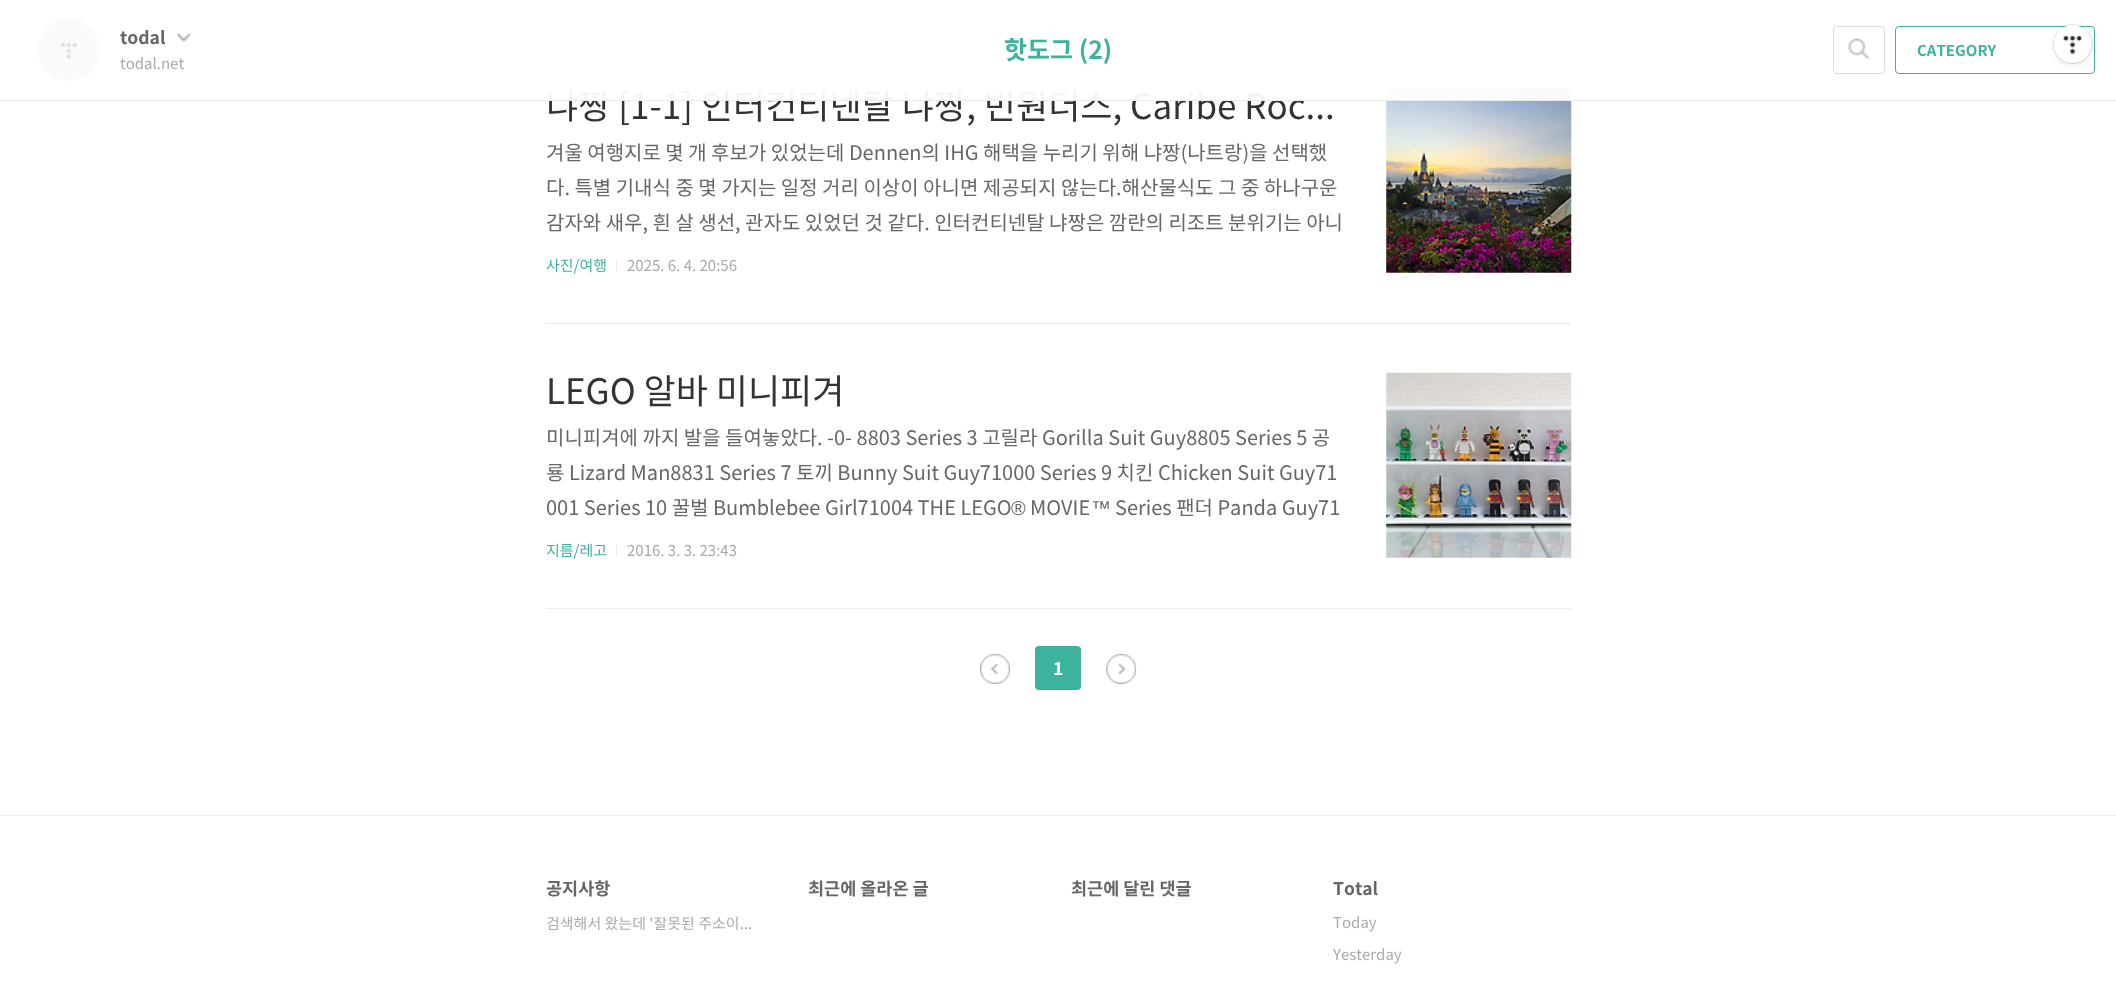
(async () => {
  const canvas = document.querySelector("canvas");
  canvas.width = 2116;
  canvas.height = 1007;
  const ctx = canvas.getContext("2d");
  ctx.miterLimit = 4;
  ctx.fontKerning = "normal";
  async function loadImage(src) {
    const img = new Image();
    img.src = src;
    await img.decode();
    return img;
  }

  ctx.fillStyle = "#ffffff";
  ctx.fillRect(0, 0, 2116, 1007);
  ctx.drawImage(await loadImage("img/1.png"), 38, 19, 61, 62);
  ctx.drawImage(await loadImage("img/2.png"), 177, 33, 14, 9);
  ctx.beginPath();
  ctx.roundRect(1833.5, 26.5, 51, 47, 3.5);
  ctx.strokeStyle = "#dddddd";
  ctx.stroke();
  ctx.drawImage(await loadImage("img/3.png"), 1848, 38, 22, 21);
  ctx.beginPath();
  ctx.roundRect(1895.5, 26.5, 199, 47, 3.5);
  ctx.strokeStyle = "#3db39e";
  ctx.stroke();
  ctx.fillStyle = "#ebebeb";
  ctx.fillRect(546, 323, 1025, 1);
  ctx.drawImage(await loadImage("img/4.png"), 1386, 87, 186, 186);
  ctx.fillRect(616, 260, 1, 11);
  ctx.fillRect(546, 608, 1025, 1);
  ctx.drawImage(await loadImage("img/5.png"), 1386, 372, 186, 186);
  ctx.fillRect(616, 545, 1, 11);
  ctx.drawImage(await loadImage("img/6.png"), 980, 654, 30, 30);
  ctx.fillStyle = "#3db39e";
  ctx.beginPath();
  ctx.roundRect(1035, 646, 46, 44, 4);
  ctx.fill();
  ctx.drawImage(await loadImage("img/7.png"), 1106, 654, 31, 30);
  ctx.fillStyle = "#ebebeb";
  ctx.fillRect(0, 815, 2116, 1);
  ctx.fillStyle = "rgba(0, 0, 0, 0.1)";
  ctx.filter = "blur(3px)";
  ctx.beginPath();
  ctx.roundRect(2054, 28, 37, 37, 18.5);
  ctx.fill();
  ctx.filter = "none";
  ctx.beginPath();
  ctx.arc(2073, 44, 19.5, 0, Math.PI * 2);
  ctx.strokeStyle = "rgba(0, 0, 0, 0.1)";
  ctx.stroke();
  ctx.fillStyle = "#ffffff";
  ctx.beginPath();
  ctx.roundRect(2054, 25, 37, 38, 18.5);
  ctx.fill();
  ctx.drawImage(await loadImage("img/8.png"), 2063, 35, 19, 19);
  ctx.font = "bold 17.5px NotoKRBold";
  ctx.fillStyle = "#666666";
  ctx.fillText("todal", 120, 44);
  ctx.font = "15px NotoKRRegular";
  ctx.fillStyle = "#aaaaaa";
  ctx.fillText("todal.net", 120, 69);
  ctx.font = "bold 25px NotoKRBold";
  ctx.fillStyle = "#3db39e";
  ctx.fillText("핫도그 (2)", 1004, 59);
  ctx.font = "bold 15px NotoKRBold";
  ctx.fillText("CATEGORY", 1917, 56);
  ctx.font = "35px NotoKRRegular";
  ctx.fillStyle = "#333333";
  ctx.fillText("냐짱 [1-1] 인터컨티넨탈 냐짱, 빈원더스, Caribe Roc...", 546, 119);
  ctx.fillStyle = "#ebebeb";
  ctx.fillRect(0, 100, 2116, 1);
  ctx.fillStyle = "rgba(255, 255, 255, 0.95)";
  ctx.fillRect(548, 87, 1024, 13);
  ctx.font = "20px NotoKRRegular";
  ctx.fillStyle = "#666666";
  for (const [text, x, y] of [
    ["겨울 여행지로 몇 개 후보가 있었는데 Dennen의 IHG 해택을 누리기 위해 냐짱(나트랑)을 선택했", 546, 160],
    ["다. 특별 기내식 중 몇 가지는 일정 거리 이상이 아니면 제공되지 않는다.해산물식도 그 중 하나구운", 546, 195],
    ["감자와 새우, 흰 살 생선, 관자도 있었던 것 같다. 인터컨티넨탈 냐짱은 깜란의 리조트 분위기는 아니", 546, 230],
  ]) {
    ctx.fillText(text, x, y);
  }
  ctx.font = "15px NotoKRRegular";
  ctx.fillStyle = "#3db39e";
  ctx.fillText("사진/여행", 546, 271);
  ctx.fillStyle = "#aaaaaa";
  ctx.fillText("2025. 6. 4. 20:56", 627, 271);
  ctx.font = "35px NotoKRRegular";
  ctx.fillStyle = "#333333";
  ctx.fillText("LEGO 알바 미니피겨", 546, 404);
  ctx.font = "20px NotoKRRegular";
  ctx.fillStyle = "#666666";
  for (const [text, x, y] of [
    ["미니피겨에 까지 발을 들여놓았다. -0- 8803 Series 3 고릴라 Gorilla Suit Guy8805 Series 5 공", 546, 445],
    ["룡 Lizard Man8831 Series 7 토끼 Bunny Suit Guy71000 Series 9 치킨 Chicken Suit Guy71", 546, 480],
    ["001 Series 10 꿀벌 Bumblebee Girl71004 THE LEGO", 546, 515],
  ]) {
    ctx.fillText(text, x, y);
  }
  ctx.font = "20px Liberation Sans";
  ctx.fillText("®", 1011, 515);
  ctx.font = "20px NotoKRRegular";
  ctx.fillText("MOVIE", 1030, 515);
  ctx.font = "20px Liberation Sans";
  ctx.fillText("™", 1091, 515);
  ctx.font = "20px NotoKRRegular";
  ctx.fillText("Series 팬더 Panda Guy71", 1115, 515);
  ctx.font = "15px NotoKRRegular";
  ctx.fillStyle = "#3db39e";
  ctx.fillText("지름/레고", 546, 556);
  ctx.fillStyle = "#aaaaaa";
  ctx.fillText("2016. 3. 3. 23:43", 627, 556);
  ctx.font = "bold 17.5px NotoKRBold";
  ctx.fillStyle = "#ffffff";
  ctx.fillText("1", 1053, 675);
  ctx.fillStyle = "#666666";
  ctx.fillText("공지사항", 546, 895);
  ctx.font = "15px NotoKRRegular";
  ctx.fillStyle = "#aaaaaa";
  ctx.fillText("검색해서 왔는데 '잘못된 주소이...", 546, 929);
  ctx.font = "bold 17.5px NotoKRBold";
  ctx.fillStyle = "#666666";
  for (const [text, x, y] of [
    ["최근에 올라온 글", 808, 895],
    ["최근에 달린 댓글", 1071, 895],
    ["Total", 1333, 895],
  ]) {
    ctx.fillText(text, x, y);
  }
  ctx.font = "15px NotoKRRegular";
  ctx.fillStyle = "#aaaaaa";
  ctx.fillText("Today", 1333, 928);
  ctx.fillText("Yesterday", 1333, 960);
})();
